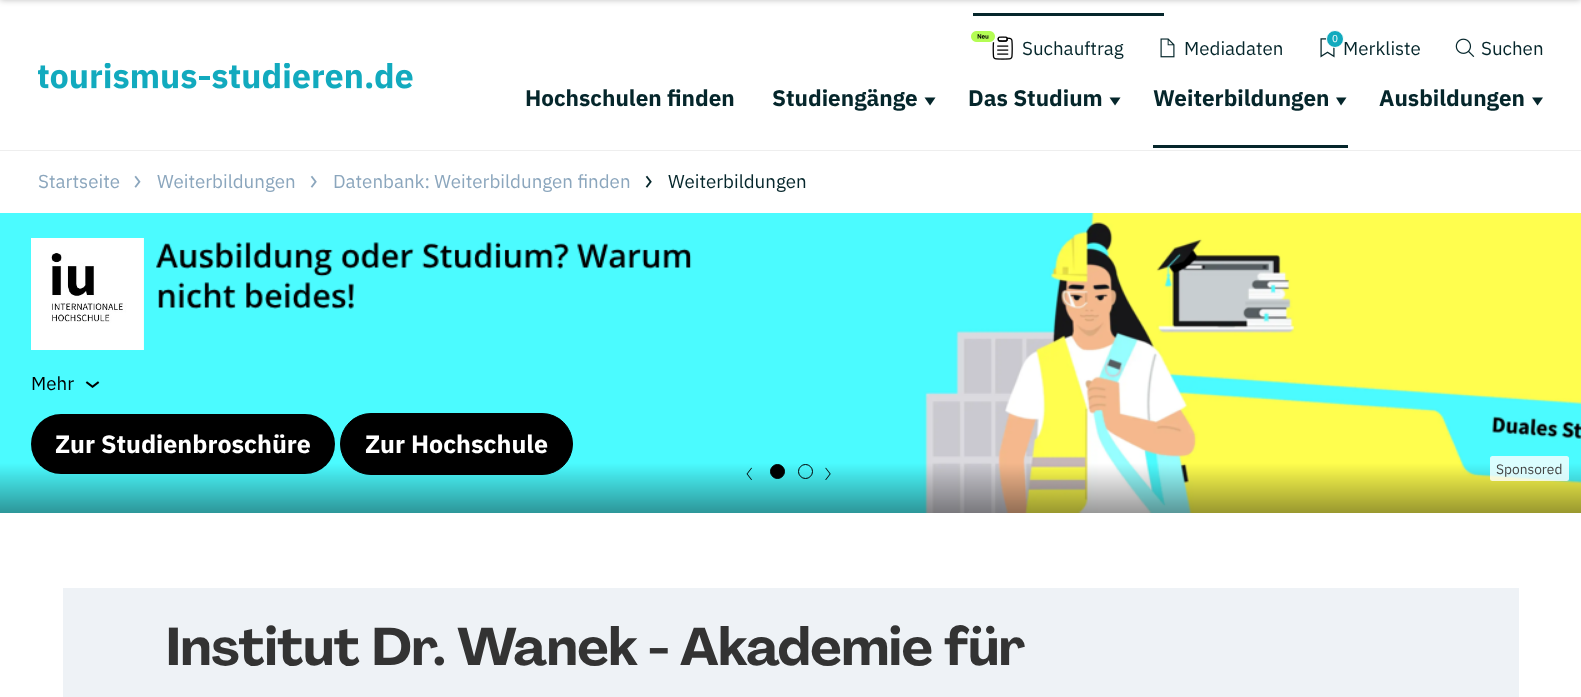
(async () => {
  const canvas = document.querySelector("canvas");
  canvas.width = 1581;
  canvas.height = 697;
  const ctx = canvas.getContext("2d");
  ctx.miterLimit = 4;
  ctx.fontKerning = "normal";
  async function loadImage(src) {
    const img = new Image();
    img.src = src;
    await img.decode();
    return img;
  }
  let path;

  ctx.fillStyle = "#ffffff";
  ctx.fillRect(0, 0, 1581, 697);
  ctx.fillStyle = "rgba(0, 0, 0, 0.25)";
  ctx.filter = "blur(3px)";
  ctx.beginPath();
  ctx.rect(0, -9, 1581, 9);
  ctx.fill();
  ctx.filter = "none";
  ctx.fillStyle = "#05262b";
  ctx.fillRect(973, 13, 191, 3);
  ctx.drawImage(await loadImage("img/1.png"), 38, 63, 375, 26);
  ctx.drawImage(await loadImage("img/2.png"), 971, 31, 42, 29);
  ctx.drawImage(await loadImage("img/3.png"), 1160, 38, 15, 20);
  ctx.drawImage(await loadImage("img/4.png"), 1320, 38, 15, 20);
  ctx.fillStyle = "#12aabe";
  ctx.beginPath();
  ctx.arc(1335, 39, 8.5, 0, Math.PI * 2);
  ctx.fill();
  ctx.strokeStyle = "#ffffff";
  ctx.stroke();
  ctx.drawImage(await loadImage("img/5.png"), 1455, 38, 20, 19);
  ctx.fillStyle = "#05262b";
  path = new Path2D("M935.5 97.5L930 105.5L924.5 97.5Z");
  ctx.fill(path);
  path = new Path2D("M1120.5 97.5L1115 105.5L1109.5 97.5Z");
  ctx.fill(path);
  path = new Path2D("M1346.5 97.5L1341 105.5L1336 97.5Z");
  ctx.fill(path);
  ctx.fillRect(1153, 145, 195, 3);
  path = new Path2D("M1543 97.5L1537.5 105.5L1532 97.5Z");
  ctx.fill(path);
  ctx.fillStyle = "#eeeeee";
  ctx.fillRect(0, 150, 1581, 1);
  ctx.drawImage(await loadImage("img/6.png"), 134, 175, 7, 13);
  ctx.drawImage(await loadImage("img/7.png"), 310, 175, 7, 13);
  ctx.drawImage(await loadImage("img/8.png"), 645, 175, 7, 13);
  ctx.drawImage(await loadImage("img/9.png"), 0, 213, 1581, 300);
  ctx.drawImage(await loadImage("img/10.png"), 31, 238, 113, 112);
  ctx.drawImage(await loadImage("img/11.png"), 156, 242, 536, 67);
  ctx.drawImage(await loadImage("img/12.png"), 85, 381, 15, 7);
  ctx.fillStyle = "#000000";
  ctx.beginPath();
  ctx.roundRect(31, 414, 304, 60, 30);
  ctx.fill();
  ctx.beginPath();
  ctx.roundRect(340.5, 413.5, 232, 61, 30.5);
  ctx.fill();
  ctx.strokeStyle = "#000000";
  ctx.stroke();
  ctx.drawImage(await loadImage("img/13.png"), 746, 467, 6, 13);
  ctx.beginPath();
  ctx.arc(777.5, 471.5, 7, 0, Math.PI * 2);
  ctx.fill();
  ctx.stroke();
  ctx.beginPath();
  ctx.arc(805.5, 471.5, 7, 0, Math.PI * 2);
  ctx.stroke();
  ctx.drawImage(await loadImage("img/14.png"), 825, 467, 6, 13);
  ctx.fillStyle = "rgba(255, 255, 255, 0.8)";
  ctx.beginPath();
  ctx.roundRect(1490, 456, 79, 25, 2.5);
  ctx.fill();
  ctx.fillStyle = "#eef2f6";
  ctx.fillRect(63, 588, 1456, 109);
  ctx.font = "18.75px IBM Plex Sans";
  ctx.fillStyle = "#05262b";
  ctx.fillText("Suchauftrag", 1022, 55);
  ctx.fillText("Mediadaten", 1184, 55);
  ctx.letterSpacing = "-1px";
  ctx.font = "10px IBM Plex Sans";
  ctx.fillStyle = "#ffffff";
  ctx.fillText("0", 1332, 42);
  ctx.letterSpacing = "0px";
  ctx.font = "18.75px IBM Plex Sans";
  ctx.fillStyle = "#05262b";
  ctx.fillText("Merkliste", 1343, 55);
  ctx.fillText("Suchen", 1481, 55);
  ctx.font = "bold 22.5px IBM Plex Sans";
  for (const [text, x, y] of [
    ["Hochschulen finden", 525, 106],
    ["Studiengänge", 772, 106],
    ["Das Studium", 968, 106],
    ["Weiterbildungen", 1153, 106],
    ["Ausbildungen", 1379, 106],
  ]) {
    ctx.fillText(text, x, y);
  }
  ctx.font = "18.75px IBM Plex Sans";
  ctx.fillStyle = "#8ba6bd";
  for (const [text, x, y] of [
    ["Startseite", 38, 188],
    ["Weiterbildungen", 157, 188],
    ["Datenbank: Weiterbildungen finden", 333, 188],
  ]) {
    ctx.fillText(text, x, y);
  }
  ctx.fillStyle = "#05262b";
  ctx.fillText("Weiterbildungen", 668, 188);
  ctx.fillStyle = "#000000";
  ctx.fillText("Mehr", 31, 390);
  ctx.font = "bold 25px IBM Plex Sans";
  ctx.fillStyle = "#ffffff";
  ctx.fillText("Zur Studienbroschüre", 55, 453);
  ctx.fillText("Zur Hochschule", 365, 453);
  ctx.font = "13.75px IBM Plex Sans";
  ctx.fillStyle = "#454545";
  ctx.fillText("Sponsored", 1496, 474);
  ctx.font = "bold 52.5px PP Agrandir";
  ctx.fillStyle = "#333333";
  ctx.fillText("Institut Dr. Wanek - Akademie für", 166, 665);
})();
